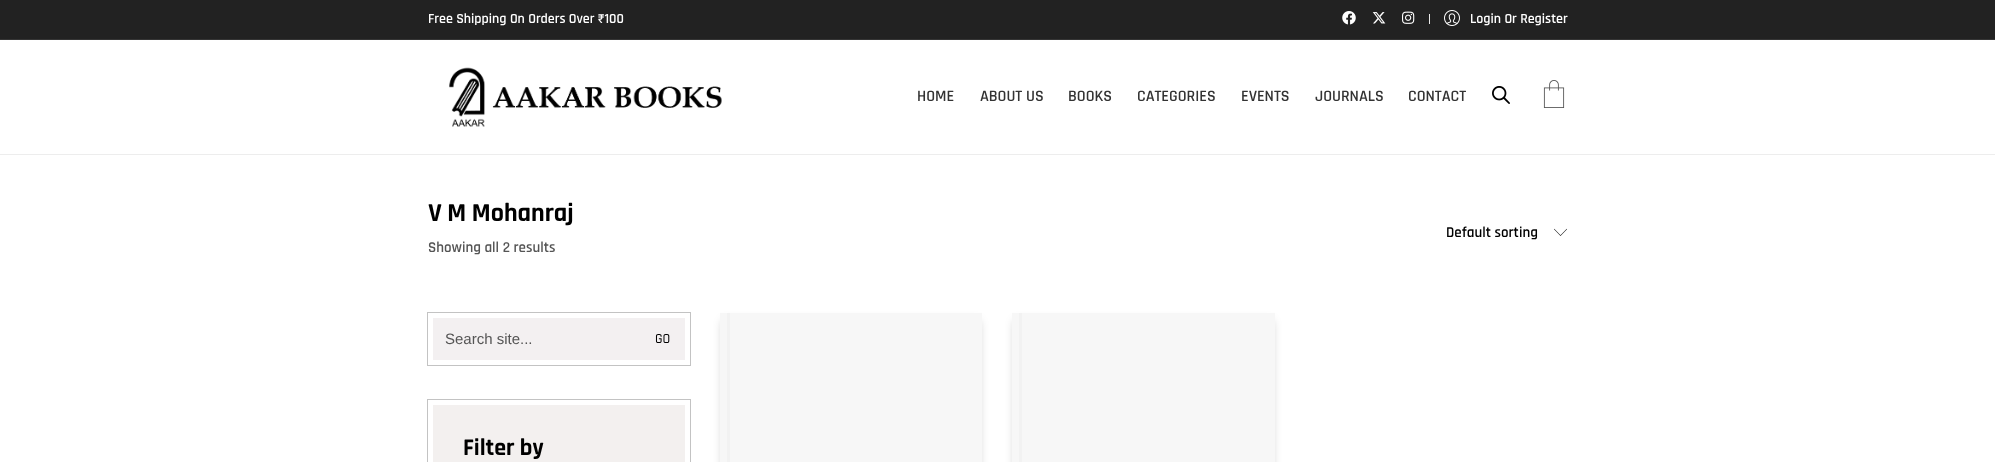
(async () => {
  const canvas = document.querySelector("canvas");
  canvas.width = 1995;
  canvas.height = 462;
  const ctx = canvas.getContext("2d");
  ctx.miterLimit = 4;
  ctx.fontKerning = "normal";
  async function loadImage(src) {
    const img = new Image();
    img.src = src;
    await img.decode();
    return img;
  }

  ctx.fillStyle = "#ffffff";
  ctx.fillRect(0, 0, 1995, 462);
  for (const [x, y, w, h, color] of [
    [0, 154, 1995, 1, "#ededed"],
    [0, 0, 1995, 39, "#222222"],
    [0, 39, 1995, 1, "#353535"],
  ]) {
    ctx.fillStyle = color;
    ctx.fillRect(x, y, w, h);
  }
  ctx.drawImage(await loadImage("img/1.png"), 1342, 11, 14, 14);
  ctx.drawImage(await loadImage("img/2.png"), 1372, 12, 14, 12);
  ctx.drawImage(await loadImage("img/3.png"), 1402, 11, 13, 13);
  ctx.fillStyle = "#e8e8e8";
  ctx.fillRect(1429, 14, 1, 10);
  ctx.drawImage(await loadImage("img/4.png"), 1444, 10, 16, 16);
  ctx.drawImage(await loadImage("img/5.png"), 449, 67, 273, 60);
  ctx.drawImage(await loadImage("img/6.png"), 1492, 86, 18, 18);
  ctx.drawImage(await loadImage("img/7.png"), 1543, 80, 22, 28);
  ctx.drawImage(await loadImage("img/8.png"), 1554, 228, 13, 8);
  ctx.strokeStyle = "#c3c3c3";
  ctx.strokeRect(427.5, 312.5, 263, 53);
  ctx.fillStyle = "#f3f0f1";
  ctx.fillRect(433, 318, 252, 42);
  ctx.strokeRect(427.5, 399.5, 263, 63);
  ctx.fillStyle = "#f3f0ef";
  ctx.fillRect(433, 405, 252, 57);
  ctx.fillStyle = "rgba(0, 0, 0, 0.25)";
  ctx.filter = "blur(5px)";
  ctx.beginPath();
  ctx.rect(723, 321, 256, 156);
  ctx.fill();
  ctx.filter = "none";
  ctx.fillStyle = "#f7f7f7";
  ctx.fillRect(720, 313, 262, 149);
  ctx.fillStyle = "#f2f2f2";
  ctx.fillRect(727, 313, 3, 149);
  ctx.fillStyle = "rgba(0, 0, 0, 0.25)";
  ctx.filter = "blur(5px)";
  ctx.beginPath();
  ctx.rect(1015, 321, 257, 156);
  ctx.fill();
  ctx.filter = "none";
  ctx.fillStyle = "#f7f7f7";
  ctx.fillRect(1012, 313, 263, 149);
  ctx.fillStyle = "#f2f2f2";
  ctx.fillRect(1019, 313, 3, 149);
  ctx.font = "600 14px Rajdhani";
  ctx.fillStyle = "#ffffff";
  ctx.fillText("Free Shipping On Orders Over ₹100", 428, 23);
  ctx.fillText("Login Or Register", 1470, 23);
  ctx.font = "600 16px Rajdhani";
  ctx.fillStyle = "#333333";
  for (const [text, x, y] of [
    ["HOME", 917, 101],
    ["ABOUT US", 980, 101],
    ["BOOKS", 1068, 101],
    ["CATEGORIES", 1137, 101],
    ["EVENTS", 1241, 101],
    ["JOURNALS", 1315, 101],
    ["CONTACT", 1408, 101],
  ]) {
    ctx.fillText(text, x, y);
  }
  ctx.font = "bold 26px Rajdhani";
  ctx.fillStyle = "#000000";
  ctx.fillText("V M Mohanraj", 428, 221);
  ctx.font = "600 15px Rajdhani";
  ctx.fillStyle = "#555555";
  ctx.fillText("Showing all 2 results", 428, 252);
  ctx.fillStyle = "#000000";
  ctx.fillText("Default sorting", 1446, 237);
  ctx.font = "15px Liberation Sans";
  ctx.fillStyle = "#555555";
  ctx.fillText("Search site...", 445, 344);
  ctx.font = "500 14px Rajdhani";
  ctx.fillStyle = "#000000";
  ctx.fillText("GO", 655, 343);
  ctx.font = "bold 24px Rajdhani";
  ctx.fillText("Filter by", 463, 455);
})();
